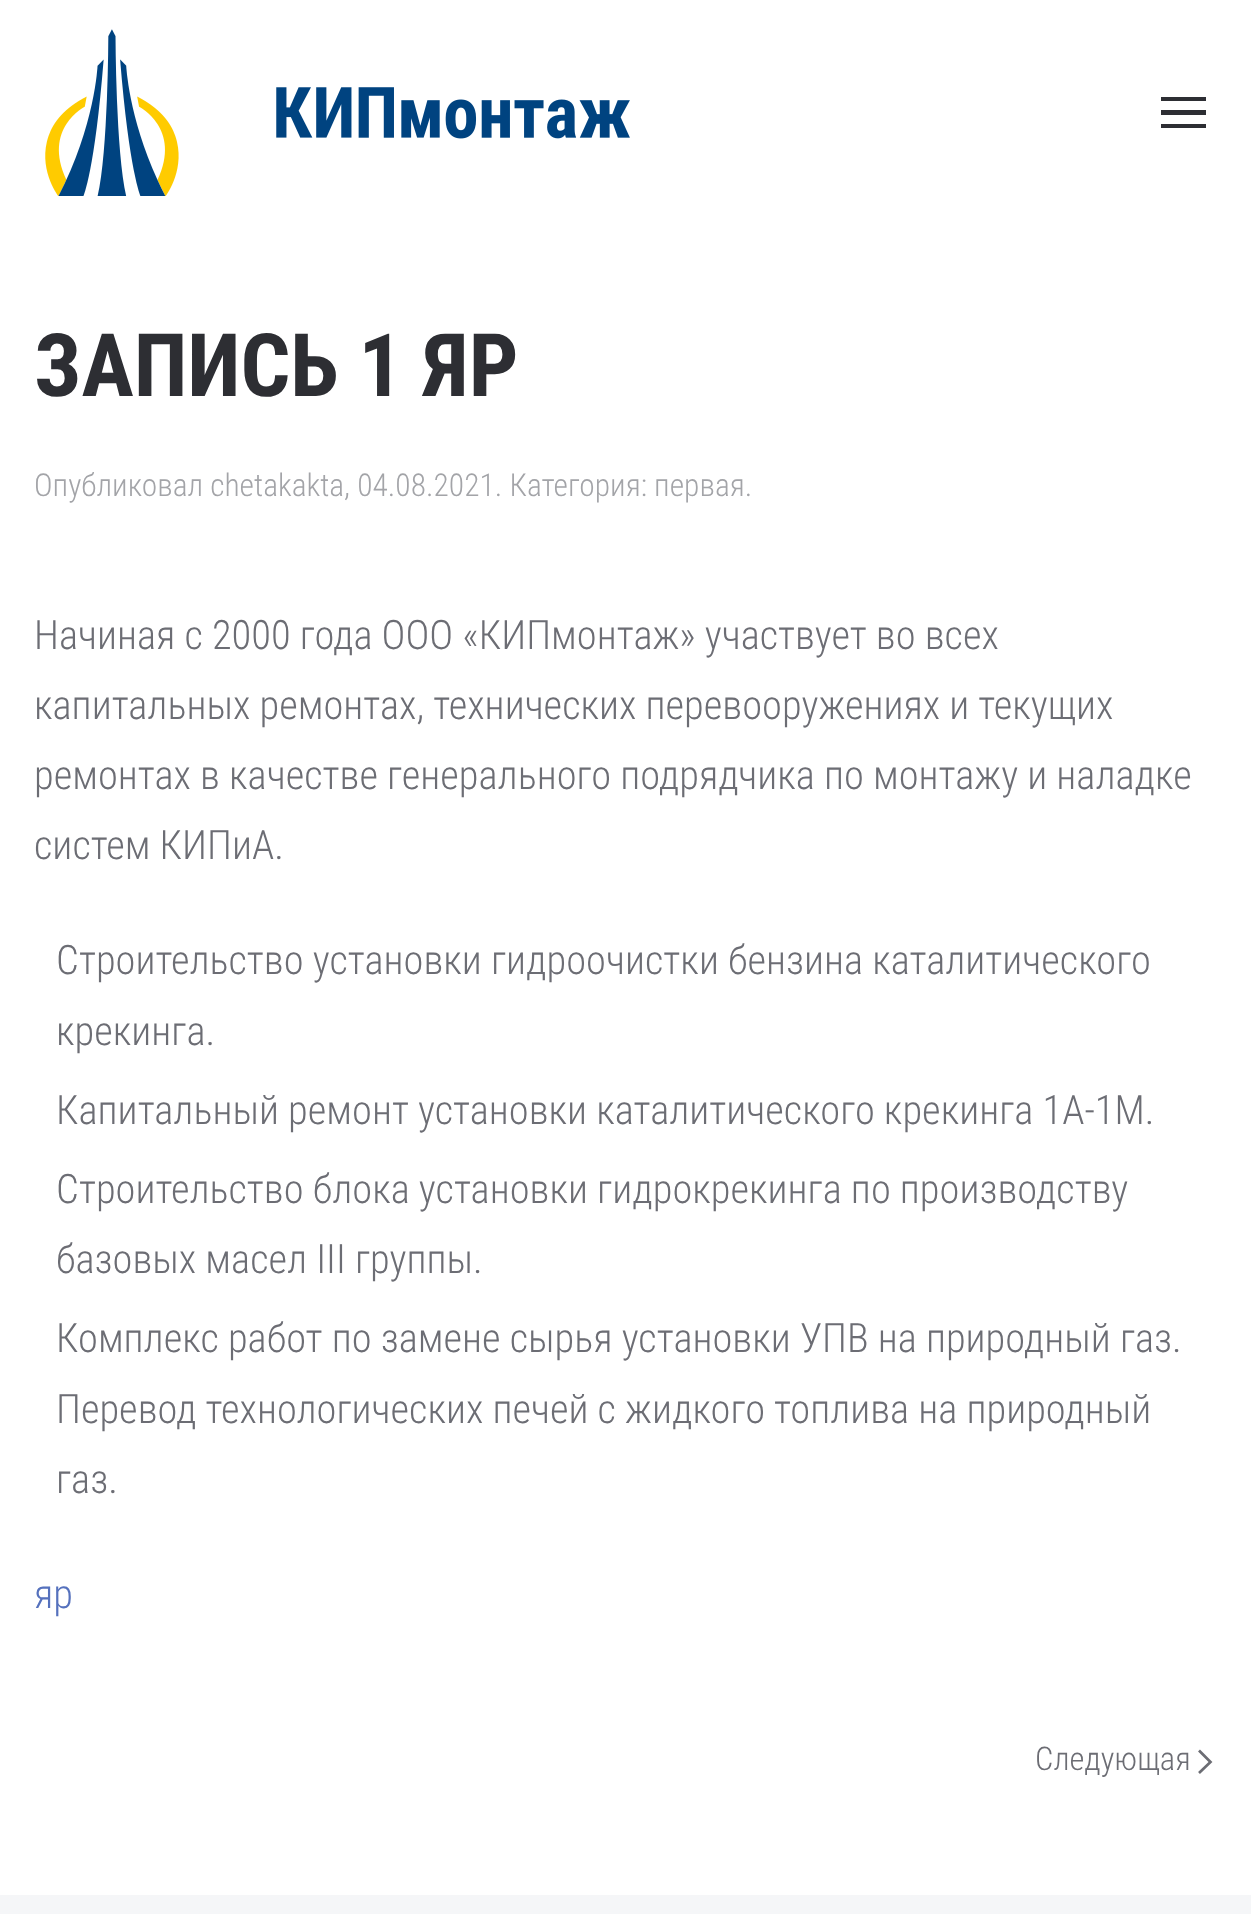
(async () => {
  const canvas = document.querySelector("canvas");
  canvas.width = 1251;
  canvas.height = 1914;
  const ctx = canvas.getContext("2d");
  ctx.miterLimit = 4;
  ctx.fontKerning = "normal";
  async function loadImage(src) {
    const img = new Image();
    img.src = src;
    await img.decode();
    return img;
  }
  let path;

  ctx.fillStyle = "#ffffff";
  ctx.fillRect(0, 0, 1251, 1914);
  ctx.drawImage(await loadImage("img/1.png"), 45, 29, 585, 167);
  for (const [x, y, w, h, color] of [
    [1161, 97, 45, 4, "#2d2e33"],
    [1161, 110, 45, 5, "#2d2e33"],
    [1161, 124, 45, 4, "#2d2e33"],
  ]) {
    ctx.fillStyle = color;
    ctx.fillRect(x, y, w, h);
  }
  path = new Path2D("M1199 1750.5L1210.5 1762L1199 1773");
  ctx.strokeStyle = "#6c6d74";
  ctx.lineWidth = 2.7;
  ctx.stroke(path);
  ctx.fillStyle = "#f5f6f8";
  ctx.fillRect(0, 1895, 1251, 19);
  ctx.font = "bold 87.5px Roboto Condensed";
  ctx.fillStyle = "#2d2e33";
  ctx.fillText("ЗАПИСЬ 1 ЯР", 34, 396);
  ctx.font = "300 31.5px Roboto Condensed";
  ctx.fillStyle = "#a3a4a8";
  ctx.fillText("Опубликовал chetakakta, 04.08.2021. Категория: первая.", 34, 496);
  ctx.font = "300 40.5px Roboto Condensed";
  ctx.fillStyle = "#6c6d74";
  for (const [text, x, y] of [
    ["Начиная с 2000 года ООО «КИПмонтаж» участвует во всех", 34, 649],
    ["капитальных ремонтах, технических перевооружениях и текущих", 34, 719],
    ["ремонтах в качестве генерального подрядчика по монтажу и наладке", 34, 789],
    ["систем КИПиА.", 34, 859],
    ["Строительство установки гидроочистки бензина каталитического", 56, 974],
    ["крекинга.", 56, 1045],
    ["Капитальный ремонт установки каталитического крекинга 1А-1М.", 56, 1124],
    ["Строительство блока установки гидрокрекинга по производству", 56, 1203],
    ["базовых масел III группы.", 56, 1273],
    ["Комплекс работ по замене сырья установки УПВ на природный газ.", 56, 1352],
    ["Перевод технологических печей с жидкого топлива на природный", 56, 1423],
    ["газ.", 56, 1493],
  ]) {
    ctx.fillText(text, x, y);
  }
  ctx.fillStyle = "#5571bd";
  ctx.fillText("яр", 34, 1608);
  ctx.font = "300 32.5px Roboto Condensed";
  ctx.fillStyle = "#6c6d74";
  ctx.fillText("Следующая", 1035, 1770);
})();
